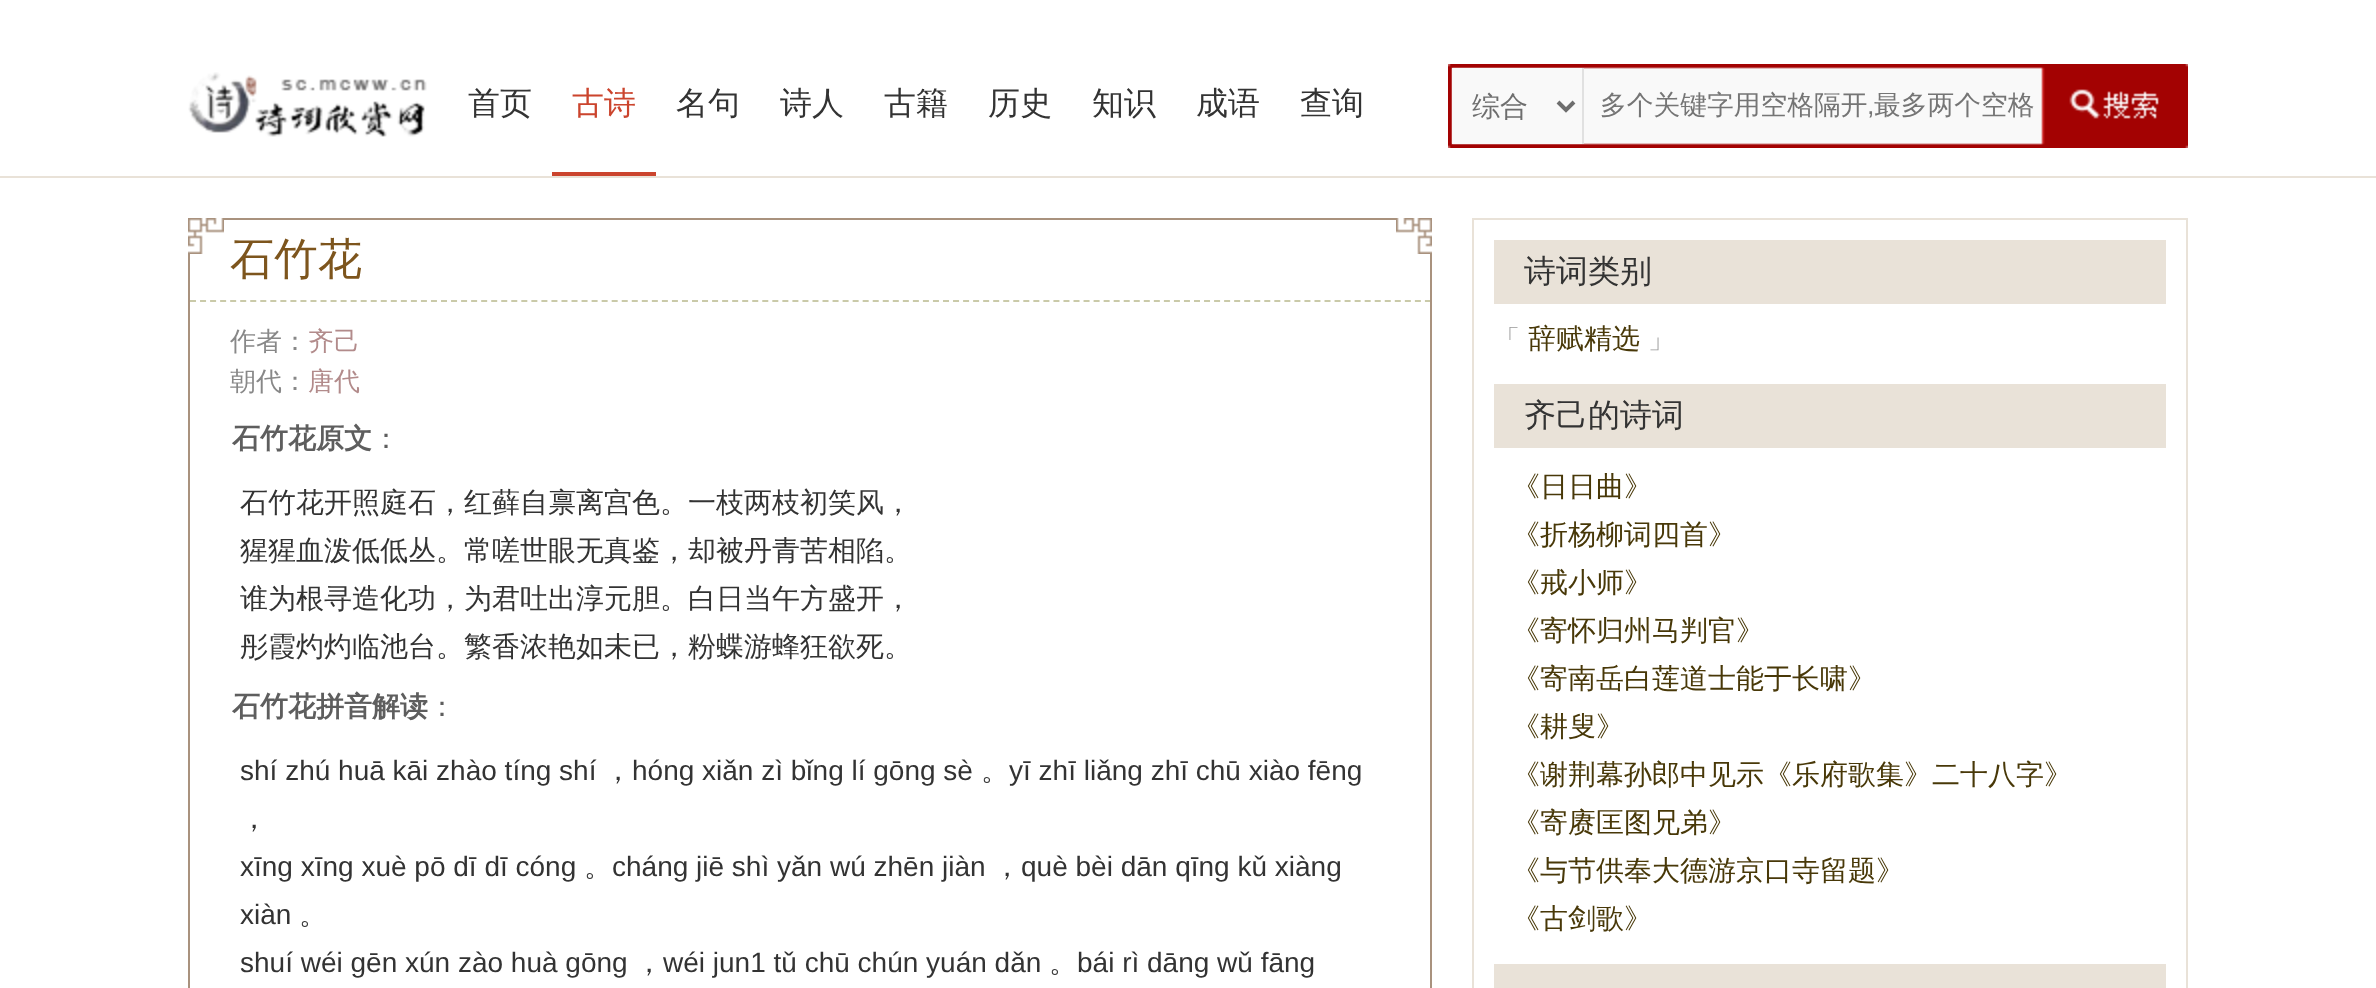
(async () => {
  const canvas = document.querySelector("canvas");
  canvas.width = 2376;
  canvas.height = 988;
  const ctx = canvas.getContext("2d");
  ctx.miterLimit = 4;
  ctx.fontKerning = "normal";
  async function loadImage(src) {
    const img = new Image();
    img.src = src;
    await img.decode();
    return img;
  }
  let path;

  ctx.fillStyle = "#ffffff";
  ctx.fillRect(0, 0, 2376, 988);
  ctx.fillStyle = "#e9e2d8";
  ctx.fillRect(0, 176, 2376, 2);
  ctx.drawImage(await loadImage("img/1.png"), 188, 72, 239, 65);
  ctx.fillStyle = "#cb442d";
  ctx.fillRect(552, 172, 104, 4);
  ctx.drawImage(await loadImage("img/2.png"), 1448, 64, 740, 84);
  ctx.fillStyle = "#f9f9f9";
  ctx.fillRect(1452, 68, 130, 76);
  ctx.fillStyle = "#e1e1e1";
  ctx.fillRect(1582, 68, 2, 76);
  path = new Path2D("M1558 102L1566 110L1574 102");
  ctx.strokeStyle = "#6e6e6e";
  ctx.lineWidth = 4;
  ctx.stroke(path);
  ctx.strokeStyle = "#a9927e";
  ctx.lineWidth = 2;
  ctx.strokeRect(189, 219, 1242, 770);
  ctx.drawImage(await loadImage("img/3.png"), 188, 218, 36, 36);
  path = new Path2D("M190 301H1430");
  ctx.strokeStyle = "#cacaa9";
  ctx.setLineDash([6, 4.04]);
  ctx.stroke(path);
  ctx.drawImage(await loadImage("img/4.png"), 1396, 218, 36, 36);
  ctx.strokeStyle = "#e9e2d8";
  ctx.setLineDash([]);
  ctx.strokeRect(1473, 219, 714, 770);
  for (const [x, y, w, h, color] of [
    [1494, 240, 672, 64, "#e9e2d8"],
    [1494, 384, 672, 64, "#e9e2d8"],
    [1494, 964, 672, 24, "#e9e2d8"],
  ]) {
    ctx.fillStyle = color;
    ctx.fillRect(x, y, w, h);
  }
  ctx.font = "500 32px WenQuanYi Zen Hei";
  ctx.fillStyle = "#333333";
  ctx.fillText("首页", 468, 114);
  ctx.fillStyle = "#cb442d";
  ctx.fillText("古诗", 572, 114);
  ctx.fillStyle = "#333333";
  for (const [text, x, y] of [
    ["名句", 676, 114],
    ["诗人", 780, 114],
    ["古籍", 884, 114],
    ["历史", 988, 114],
    ["知识", 1092, 114],
    ["成语", 1196, 114],
    ["查询", 1300, 114],
  ]) {
    ctx.fillText(text, x, y);
  }
  ctx.font = "500 28px WenQuanYi Zen Hei";
  ctx.fillStyle = "#6e6e6e";
  ctx.fillText("综合", 1472, 116);
  ctx.font = "500 26.75px WenQuanYi Zen Hei";
  ctx.fillStyle = "#757575";
  ctx.fillText("多个关键字用空格隔开", 1600, 114);
  ctx.font = "26.75px Liberation Sans";
  ctx.fillText(",", 1867, 114);
  ctx.font = "500 26.75px WenQuanYi Zen Hei";
  ctx.fillText("最多两个空格", 1874, 114);
  ctx.font = "500 44px WenQuanYi Zen Hei";
  ctx.fillStyle = "#7d551d";
  ctx.fillText("石竹花", 230, 274);
  ctx.font = "500 26px WenQuanYi Zen Hei";
  ctx.fillStyle = "#888888";
  ctx.fillText("作者：", 230, 350);
  ctx.fillStyle = "#b28b8b";
  ctx.fillText("齐己", 308, 350);
  ctx.fillStyle = "#888888";
  ctx.fillText("朝代：", 230, 390);
  ctx.fillStyle = "#b28b8b";
  ctx.fillText("唐代", 308, 390);
  ctx.font = "bold 28px WenQuanYi Zen Hei";
  ctx.fillStyle = "#5e5e5e";
  ctx.fillText("石竹花原文", 232, 448);
  ctx.font = "500 28px WenQuanYi Zen Hei";
  ctx.fillText("：", 372, 448);
  ctx.fillStyle = "#333333";
  for (const [text, x, y] of [
    ["石竹花开照庭石，红藓自禀离宫色。一枝两枝初笑风，", 240, 512],
    ["猩猩血泼低低丛。常嗟世眼无真鉴，却被丹青苦相陷。", 240, 560],
    ["谁为根寻造化功，为君吐出淳元胆。白日当午方盛开，", 240, 608],
    ["彤霞灼灼临池台。繁香浓艳如未已，粉蝶游蜂狂欲死。", 240, 656],
  ]) {
    ctx.fillText(text, x, y);
  }
  ctx.font = "bold 28px WenQuanYi Zen Hei";
  ctx.fillStyle = "#5e5e5e";
  ctx.fillText("石竹花拼音解读", 232, 716);
  ctx.font = "500 28px WenQuanYi Zen Hei";
  ctx.fillText("：", 428, 716);
  ctx.font = "28px Liberation Sans";
  ctx.fillStyle = "#333333";
  ctx.fillText("shí zhú huā kāi zhào tíng shí", 240, 780);
  ctx.font = "500 28px WenQuanYi Zen Hei";
  ctx.fillText("，", 604, 780);
  ctx.font = "28px Liberation Sans";
  ctx.fillText("hóng xiǎn zì bǐng lí gōng sè", 632, 780);
  ctx.font = "500 28px WenQuanYi Zen Hei";
  ctx.fillText("。", 981, 780);
  ctx.font = "28px Liberation Sans";
  ctx.fillText("yī zhī liǎng zhī chū xiào fēng", 1009, 780);
  ctx.font = "500 28px WenQuanYi Zen Hei";
  ctx.fillText("，", 240, 828);
  ctx.font = "28px Liberation Sans";
  ctx.fillText("xīng xīng xuè pō dī dī cóng", 240, 876);
  ctx.font = "500 28px WenQuanYi Zen Hei";
  ctx.fillText("。", 584, 876);
  ctx.font = "28px Liberation Sans";
  ctx.fillText("cháng jiē shì yǎn wú zhēn jiàn", 612, 876);
  ctx.font = "500 28px WenQuanYi Zen Hei";
  ctx.fillText("，", 993, 876);
  ctx.font = "28px Liberation Sans";
  ctx.fillText("què bèi dān qīng kǔ xiàng", 1021, 876);
  ctx.fillText("xiàn", 240, 924);
  ctx.font = "500 28px WenQuanYi Zen Hei";
  ctx.fillText("。", 299, 924);
  ctx.font = "28px Liberation Sans";
  ctx.fillText("shuí wéi gēn xún zào huà gōng", 240, 972);
  ctx.font = "500 28px WenQuanYi Zen Hei";
  ctx.fillText("，", 635, 972);
  ctx.font = "28px Liberation Sans";
  ctx.fillText("wéi jun1 tǔ chū chún yuán dǎn", 663, 972);
  ctx.font = "500 28px WenQuanYi Zen Hei";
  ctx.fillText("。", 1049, 972);
  ctx.font = "28px Liberation Sans";
  ctx.fillText("bái rì dāng wǔ fāng", 1077, 972);
  ctx.font = "500 32px WenQuanYi Zen Hei";
  ctx.fillText("诗词类别", 1524, 282);
  ctx.font = "500 26px WenQuanYi Zen Hei";
  ctx.fillStyle = "#999999";
  ctx.fillText("「", 1494, 348);
  ctx.font = "500 28px WenQuanYi Zen Hei";
  ctx.fillStyle = "#483808";
  ctx.fillText("辞赋精选", 1528, 348);
  ctx.font = "500 26px WenQuanYi Zen Hei";
  ctx.fillStyle = "#999999";
  ctx.fillText("」", 1648, 348);
  ctx.font = "500 32px WenQuanYi Zen Hei";
  ctx.fillStyle = "#333333";
  ctx.fillText("齐己的诗词", 1524, 426);
  ctx.font = "500 28px WenQuanYi Zen Hei";
  ctx.fillStyle = "#483808";
  for (const [text, x, y] of [
    ["《日日曲》", 1512, 496],
    ["《折杨柳词四首》", 1512, 544],
    ["《戒小师》", 1512, 592],
    ["《寄怀归州马判官》", 1512, 640],
    ["《寄南岳白莲道士能于长啸》", 1512, 688],
    ["《耕叟》", 1512, 736],
    ["《谢荆幕孙郎中见示《乐府歌集》二十八字》", 1512, 784],
    ["《寄赓匡图兄弟》", 1512, 832],
    ["《与节供奉大德游京口寺留题》", 1512, 880],
    ["《古剑歌》", 1512, 928],
  ]) {
    ctx.fillText(text, x, y);
  }
})();
